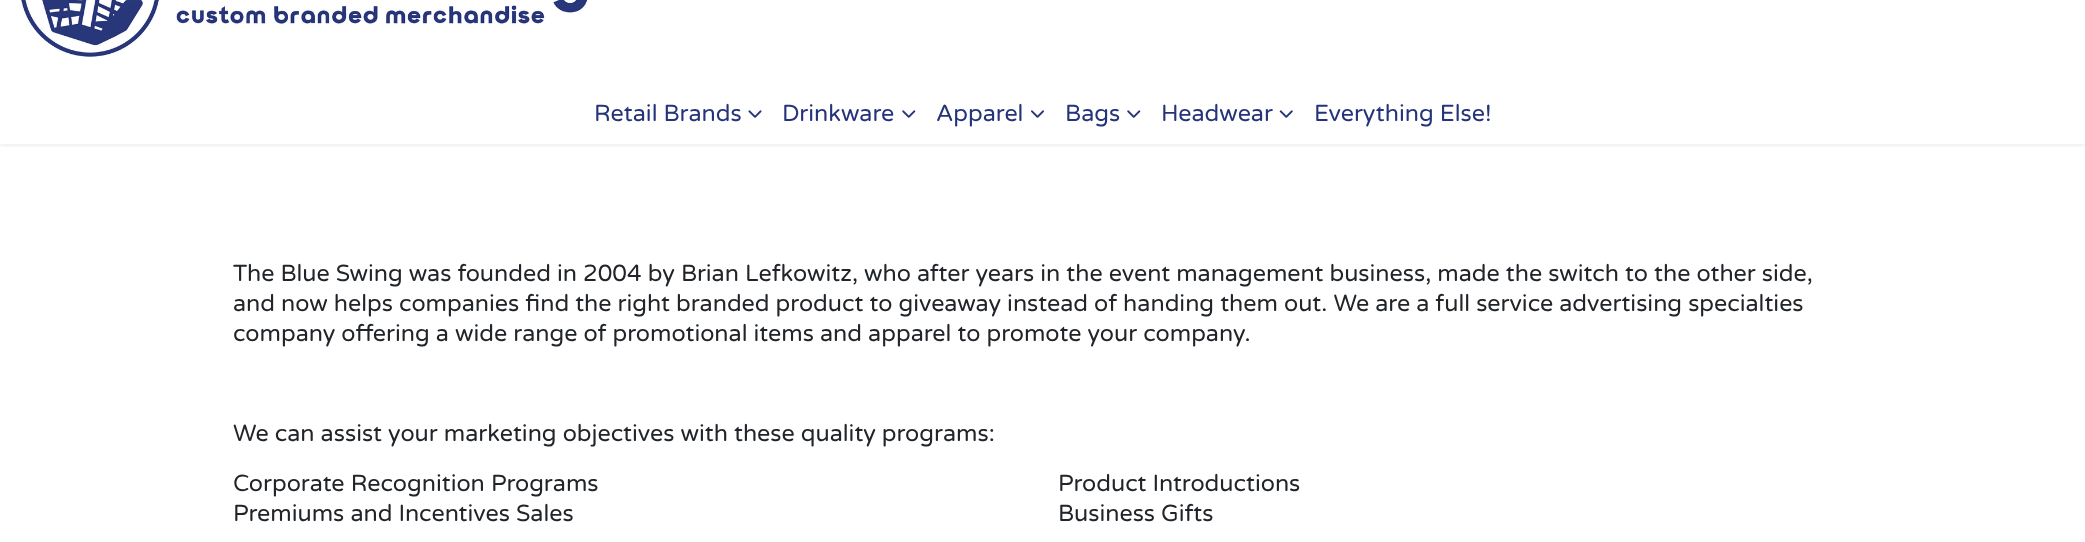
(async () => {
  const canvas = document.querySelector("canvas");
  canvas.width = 2085;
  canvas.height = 542;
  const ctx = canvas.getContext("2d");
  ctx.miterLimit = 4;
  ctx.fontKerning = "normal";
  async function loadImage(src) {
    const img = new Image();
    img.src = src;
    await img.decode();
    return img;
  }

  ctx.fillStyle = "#ffffff";
  ctx.fillRect(0, 0, 2085, 542);
  ctx.drawImage(await loadImage("img/1.png"), 20, 0, 568, 57);
  ctx.save();
  ctx.beginPath();
  ctx.rect(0, 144, 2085, 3);
  ctx.clip();
  ctx.fillStyle = "rgba(0, 0, 0, 0.07)";
  ctx.filter = "blur(2.5px)";
  ctx.beginPath();
  ctx.rect(0, 86, 2085, 60);
  ctx.fill();
  ctx.filter = "none";
  ctx.restore();
  ctx.drawImage(await loadImage("img/2.png"), 748, 110, 14, 8);
  ctx.drawImage(await loadImage("img/3.png"), 902, 110, 14, 8);
  ctx.drawImage(await loadImage("img/4.png"), 1031, 110, 13, 8);
  ctx.drawImage(await loadImage("img/3.png"), 1127, 110, 14, 8);
  ctx.drawImage(await loadImage("img/5.png"), 1279, 110, 14, 8);
  ctx.font = "23.33px Varela Round";
  ctx.fillStyle = "#25347a";
  for (const [text, x, y] of [
    ["Retail Brands", 594, 121],
    ["Drinkware", 782, 121],
    ["Apparel", 936, 121],
    ["Bags", 1065, 121],
    ["Headwear", 1161, 121],
    ["Everything Else!", 1314, 121],
  ]) {
    ctx.fillText(text, x, y);
  }
  ctx.fillStyle = "#212529";
  for (const [text, x, y] of [
    ["The Blue Swing was founded in 2004 by Brian Lefkowitz, who after years in the event management business, made the switch to the other side,", 233, 281],
    ["and now helps companies find the right branded product to giveaway instead of handing them out. We are a full service advertising specialties", 233, 311],
    ["company offering a wide range of promotional items and apparel to promote your company.", 233, 341],
    ["We can assist your marketing objectives with these quality programs:", 233, 441],
    ["Corporate Recognition Programs", 233, 491],
    ["Premiums and Incentives Sales", 233, 521],
    ["Product Introductions", 1058, 491],
    ["Business Gifts", 1058, 521],
  ]) {
    ctx.fillText(text, x, y);
  }
})();
